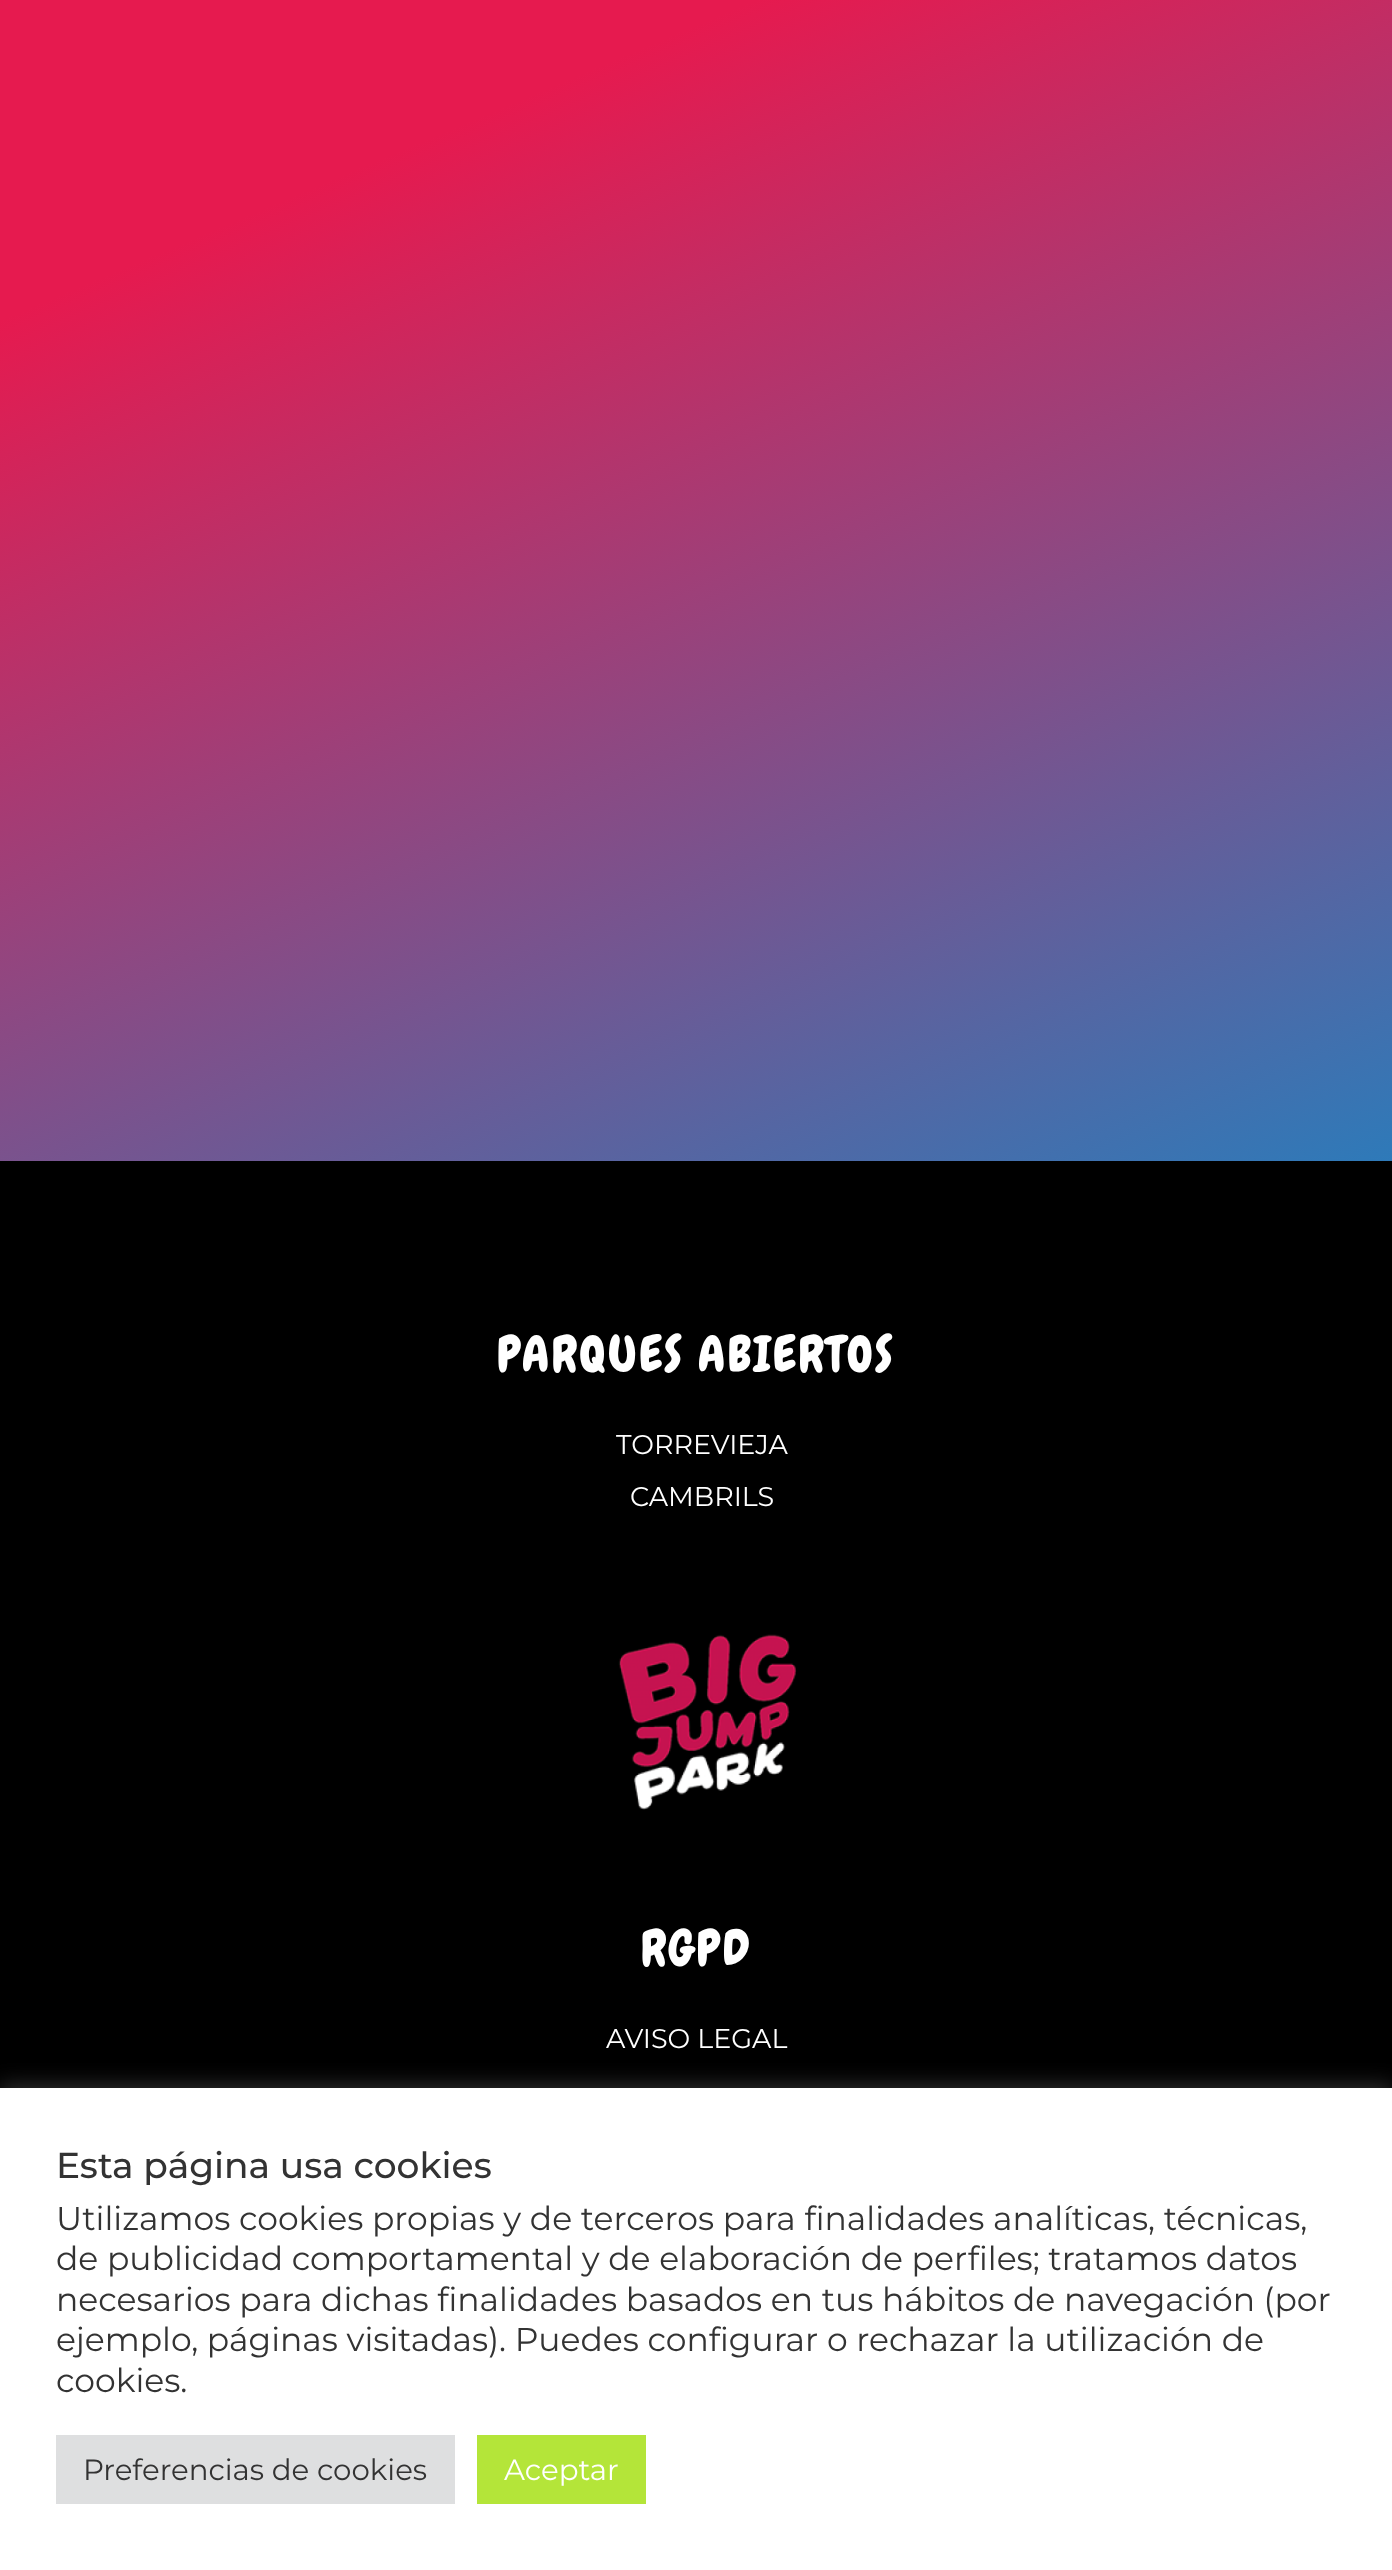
(async () => {
  const canvas = document.querySelector("canvas");
  canvas.width = 1392;
  canvas.height = 2570;
  const ctx = canvas.getContext("2d");
  ctx.miterLimit = 4;
  ctx.fontKerning = "normal";
  async function loadImage(src) {
    const img = new Image();
    img.src = src;
    await img.decode();
    return img;
  }
  let gradient;

  ctx.fillStyle = "#ffffff";
  ctx.fillRect(0, 0, 1392, 2570);
  gradient = ctx.createLinearGradient(253, -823, 1140, 1268);
  gradient.addColorStop(0.42, "#e61a4f");
  gradient.addColorStop(1, "#2e7ab9");
  ctx.fillStyle = gradient;
  ctx.fillRect(0, 0, 1392, 1161);
  ctx.fillStyle = "#000000";
  ctx.fillRect(0, 1161, 1392, 927);
  ctx.drawImage(await loadImage("img/1.png"), 618, 1634, 179, 176);
  ctx.fillStyle = "rgba(172, 171, 171, 0.3)";
  ctx.filter = "blur(11px)";
  ctx.beginPath();
  ctx.rect(0, 2086, 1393, 484);
  ctx.fill();
  ctx.filter = "none";
  for (const [x, y, w, h, color] of [
    [0, 2088, 1392, 482, "#ffffff"],
    [56, 2435, 399, 69, "#dedfe0"],
    [477, 2435, 169, 69, "#b4e539"],
  ]) {
    ctx.fillStyle = color;
    ctx.fillRect(x, y, w, h);
  }
  ctx.letterSpacing = "2.25px";
  ctx.font = "49.5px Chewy";
  ctx.fillStyle = "#ffffff";
  ctx.fillText("PARQUES ABIERTOS", 497, 1371);
  ctx.letterSpacing = "0px";
  ctx.font = "27px Montserrat";
  ctx.fillText("TORREVIEJA", 616, 1454);
  ctx.fillText("CAMBRILS", 630, 1506);
  ctx.letterSpacing = "2.25px";
  ctx.font = "49.5px Chewy";
  ctx.fillText("RGPD", 641, 1965);
  ctx.letterSpacing = "0px";
  ctx.font = "27px Montserrat";
  ctx.fillText("AVISO LEGAL", 606, 2048);
  ctx.font = "500 36px Montserrat";
  ctx.fillStyle = "#333333";
  ctx.fillText("Esta página usa cookies", 56, 2178);
  ctx.font = "33px Montserrat";
  for (const [text, x, y] of [
    ["Utilizamos cookies propias y de terceros para finalidades analíticas, técnicas,", 56, 2230],
    ["de publicidad comportamental y de elaboración de perfiles; tratamos datos", 56, 2270],
    ["necesarios para dichas finalidades basados en tus hábitos de navegación (por", 56, 2311],
    ["ejemplo, páginas visitadas). Puedes configurar o rechazar la utilización de", 56, 2351],
    ["cookies.", 56, 2392],
  ]) {
    ctx.fillText(text, x, y);
  }
  ctx.font = "29.25px Montserrat";
  ctx.fillText("Preferencias de cookies", 83, 2480);
  ctx.fillStyle = "#ffffff";
  ctx.fillText("Aceptar", 504, 2480);
})();
